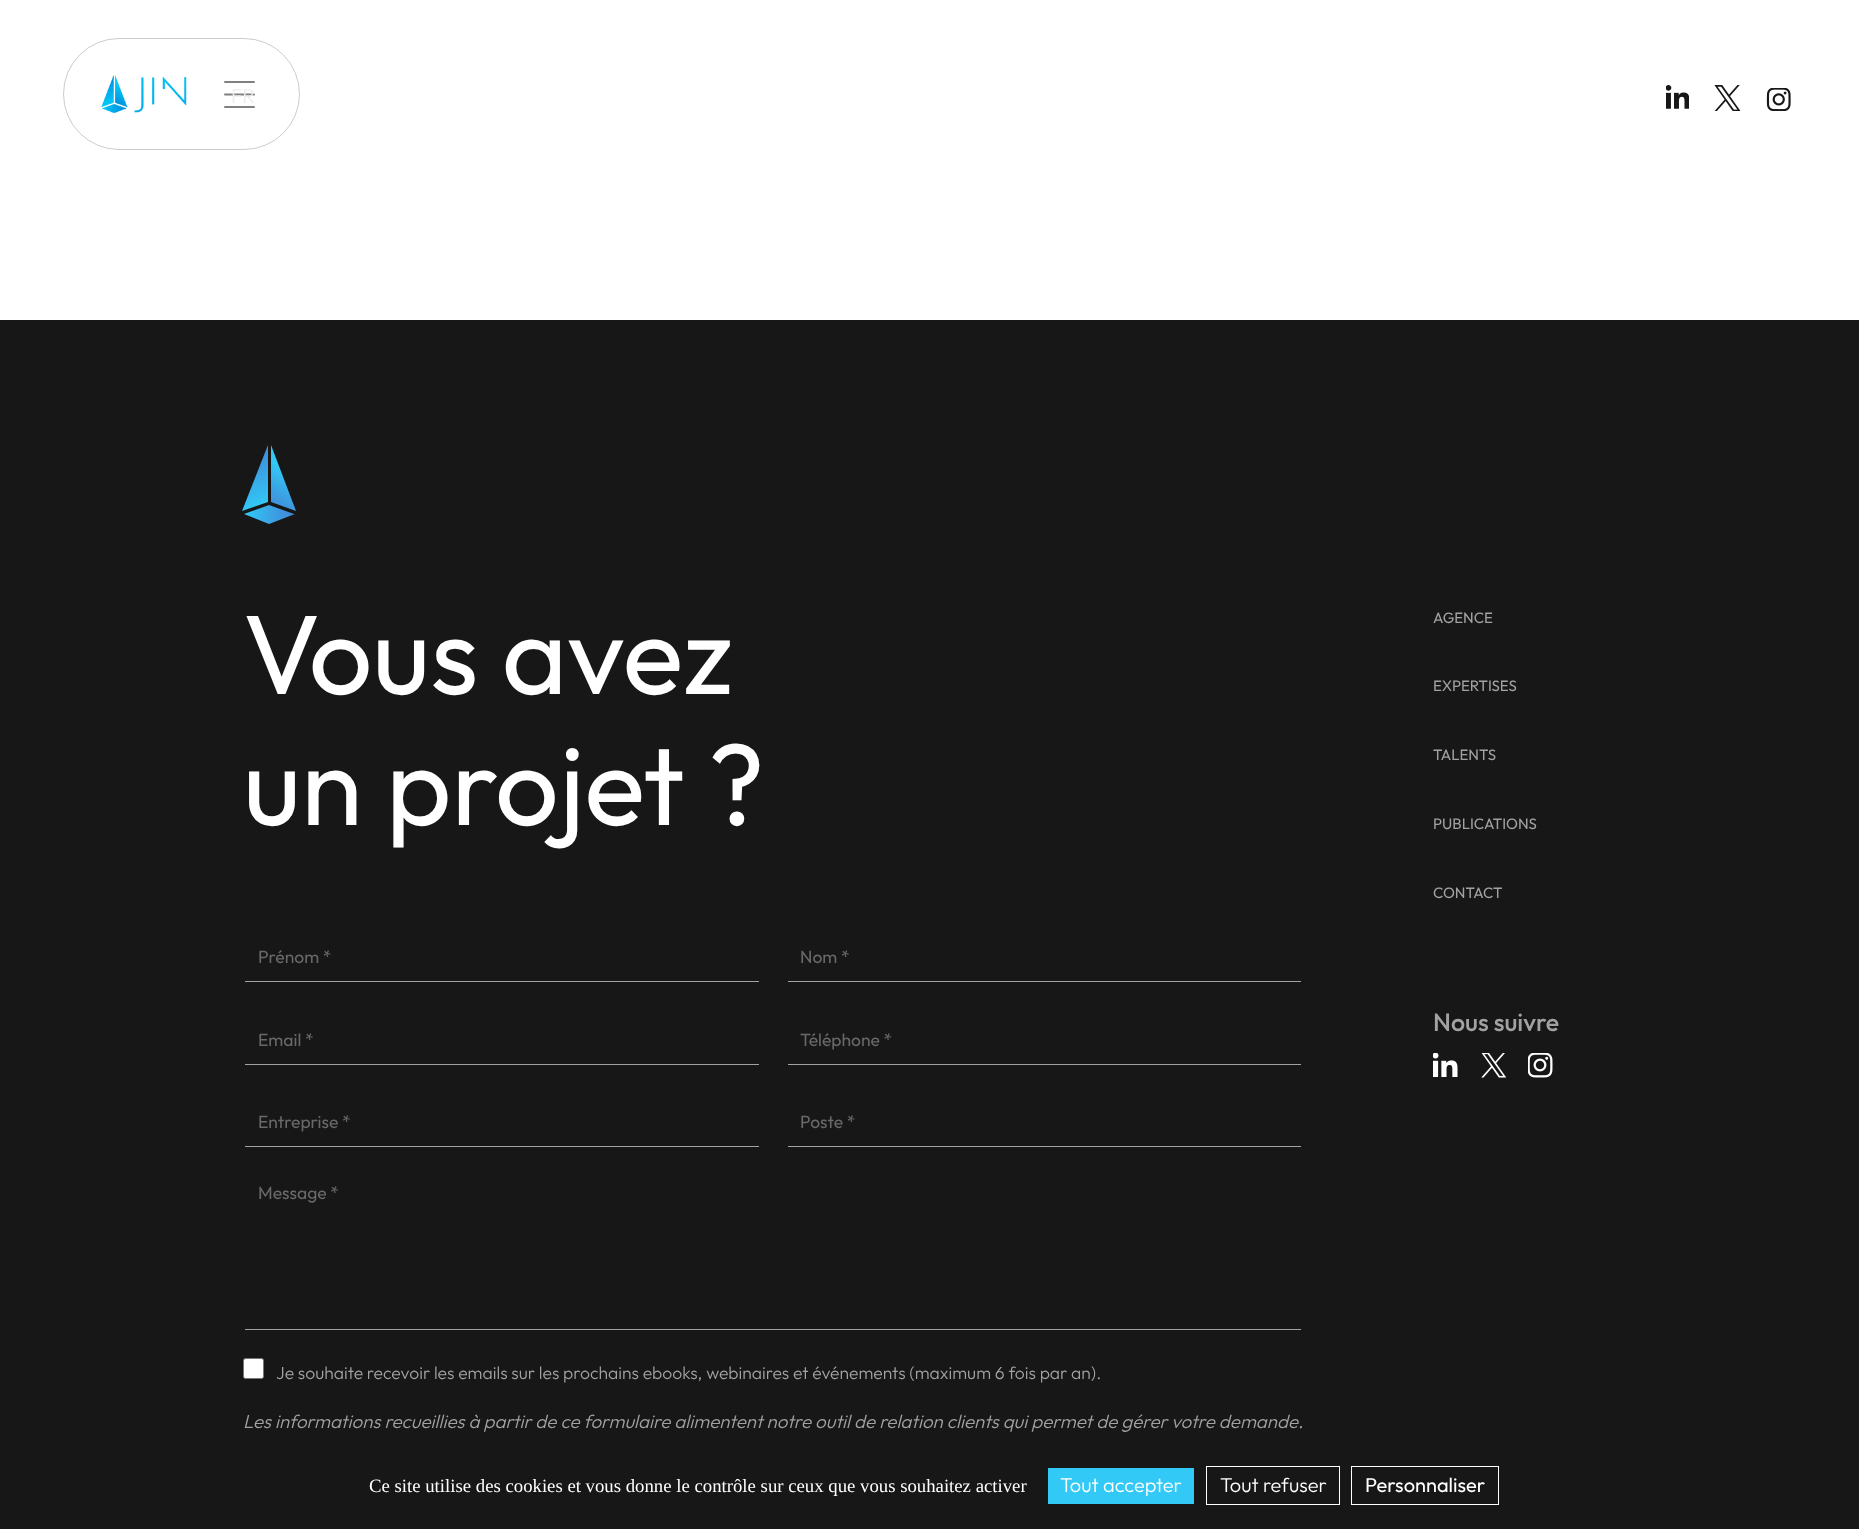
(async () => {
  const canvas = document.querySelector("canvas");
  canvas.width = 1859;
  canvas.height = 1529;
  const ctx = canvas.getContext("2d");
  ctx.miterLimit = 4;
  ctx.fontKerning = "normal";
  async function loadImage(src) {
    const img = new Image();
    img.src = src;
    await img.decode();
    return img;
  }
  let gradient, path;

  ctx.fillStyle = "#ffffff";
  ctx.fillRect(0, 0, 1859, 1529);
  ctx.beginPath();
  ctx.roundRect(63.5, 38.5, 236, 111, 55.5);
  ctx.strokeStyle = "#cccccc";
  ctx.stroke();
  ctx.drawImage(await loadImage("img/1.png"), 101, 75, 86, 38);
  path = new Path2D("M225 82H254M225 94.5H254M225 107H254");
  ctx.strokeStyle = "#808080";
  ctx.lineWidth = 2;
  ctx.lineCap = "round";
  ctx.stroke(path);
  ctx.drawImage(await loadImage("img/2.png"), 1666, 85, 23, 24);
  ctx.drawImage(await loadImage("img/3.png"), 1714, 85, 27, 26);
  ctx.drawImage(await loadImage("img/4.png"), 1766, 88, 25, 23);
  ctx.fillStyle = "#171717";
  ctx.fillRect(0, 320, 1859, 1209);
  gradient = ctx.createLinearGradient(288, 471, 257, 521);
  gradient.addColorStop(0, "#32c9f7");
  gradient.addColorStop(0.33, "#3aa8e6");
  gradient.addColorStop(0.71, "#4288d6");
  gradient.addColorStop(0.92, "#457cd1");
  gradient.addColorStop(1, "#457dd1");
  ctx.fillStyle = gradient;
  path = new Path2D("M271 445V502L296 511Z");
  ctx.fill(path);
  gradient = ctx.createLinearGradient(246, 519, 311, 517);
  gradient.addColorStop(0, "#32c9f7");
  gradient.addColorStop(0.04, "#33c4f4");
  gradient.addColorStop(0.46, "#3c9de1");
  gradient.addColorStop(0.8, "#4284d5");
  gradient.addColorStop(1, "#457cd1");
  ctx.fillStyle = gradient;
  path = new Path2D("M269 524L295 514H244Z");
  ctx.fill(path);
  gradient = ctx.createLinearGradient(246, 510, 311, 509);
  gradient.addColorStop(0, "#32c9f7");
  gradient.addColorStop(0.04, "#33c4f4");
  gradient.addColorStop(0.46, "#3c9de1");
  gradient.addColorStop(0.8, "#4284d5");
  gradient.addColorStop(1, "#457cd1");
  ctx.fillStyle = gradient;
  path = new Path2D("M244 514H294L269 505Z");
  ctx.fill(path);
  gradient = ctx.createLinearGradient(265, 503, 236, 433);
  gradient.addColorStop(0, "#32c9f7");
  gradient.addColorStop(0.04, "#33c4f4");
  gradient.addColorStop(0.46, "#3c9de1");
  gradient.addColorStop(0.8, "#4284d5");
  gradient.addColorStop(1, "#457cd1");
  ctx.fillStyle = gradient;
  path = new Path2D("M268 445L242 511L268 502Z");
  ctx.fill(path);
  for (const [x, y, w, h, color] of [
    [245, 981, 514, 1, "#a2a2a2"],
    [788, 981, 513, 1, "#a2a2a2"],
    [245, 1064, 514, 1, "#a2a2a2"],
    [788, 1064, 513, 1, "#a2a2a2"],
    [245, 1146, 514, 1, "#a2a2a2"],
    [788, 1146, 513, 1, "#a2a2a2"],
    [245, 1329, 1056, 1, "#a2a2a2"],
  ]) {
    ctx.fillStyle = color;
    ctx.fillRect(x, y, w, h);
  }
  ctx.fillStyle = "#ffffff";
  ctx.beginPath();
  ctx.roundRect(243.5, 1358.5, 20, 20, 2);
  ctx.fill();
  ctx.strokeStyle = "#767676";
  ctx.lineWidth = 1;
  ctx.stroke();
  ctx.drawImage(await loadImage("img/5.png"), 1433, 1053, 25, 24);
  ctx.drawImage(await loadImage("img/6.png"), 1481, 1053, 26, 25);
  ctx.drawImage(await loadImage("img/7.png"), 1528, 1053, 25, 25);
  ctx.fillStyle = "#32c9f7";
  ctx.fillRect(1048, 1468, 146, 36);
  ctx.strokeStyle = "#ffffff";
  ctx.strokeRect(1206.5, 1466.5, 133, 38);
  ctx.strokeRect(1351.5, 1466.5, 147, 38);
  ctx.font = "300 20px Outfit";
  ctx.fillStyle = "#ededed";
  ctx.fillText("FR", 231, 103);
  ctx.font = "112.5px Outfit";
  ctx.fillStyle = "#ffffff";
  ctx.fillText("Vous avez", 243, 694);
  ctx.fillText("un projet ?", 243, 825);
  ctx.font = "17.5px Outfit";
  ctx.fillStyle = "#696969";
  for (const [text, x, y] of [
    ["Prénom *", 258, 963],
    ["Nom *", 800, 963],
    ["Email *", 258, 1046],
    ["Téléphone *", 800, 1046],
    ["Entreprise *", 258, 1128],
    ["Poste *", 800, 1128],
    ["Message *", 258, 1199],
  ]) {
    ctx.fillText(text, x, y);
  }
  ctx.font = "300 17.5px Outfit";
  ctx.fillStyle = "#a2a2a2";
  ctx.fillText("Je souhaite recevoir les emails sur les prochains ebooks, webinaires et événements (maximum 6 fois par an).", 276, 1379);
  ctx.font = "italic 300 18.75px Outfit";
  ctx.fillText("Les informations recueillies à partir de ce formulaire alimentent notre outil de relation clients qui permet de gérer votre demande.", 243, 1428);
  ctx.font = "15px Outfit";
  for (const [text, x, y] of [
    ["AGENCE", 1433, 623],
    ["EXPERTISES", 1433, 691],
    ["TALENTS", 1433, 760],
    ["PUBLICATIONS", 1433, 829],
    ["CONTACT", 1433, 898],
  ]) {
    ctx.fillText(text, x, y);
  }
  ctx.font = "500 25px Outfit";
  ctx.fillText("Nous suivre", 1433, 1031);
  ctx.font = "18.75px Liberation Serif";
  ctx.fillStyle = "#ffffff";
  ctx.fillText("Ce site utilise des cookies et vous donne le contrôle sur ceux que vous souhaitez activer", 369, 1492);
  ctx.font = "300 20px Outfit";
  ctx.fillText("Tout accepter", 1060, 1492);
  ctx.fillText("Tout refuser", 1220, 1492);
  ctx.font = "20px Outfit";
  ctx.fillText("Personnaliser", 1365, 1492);
})();
